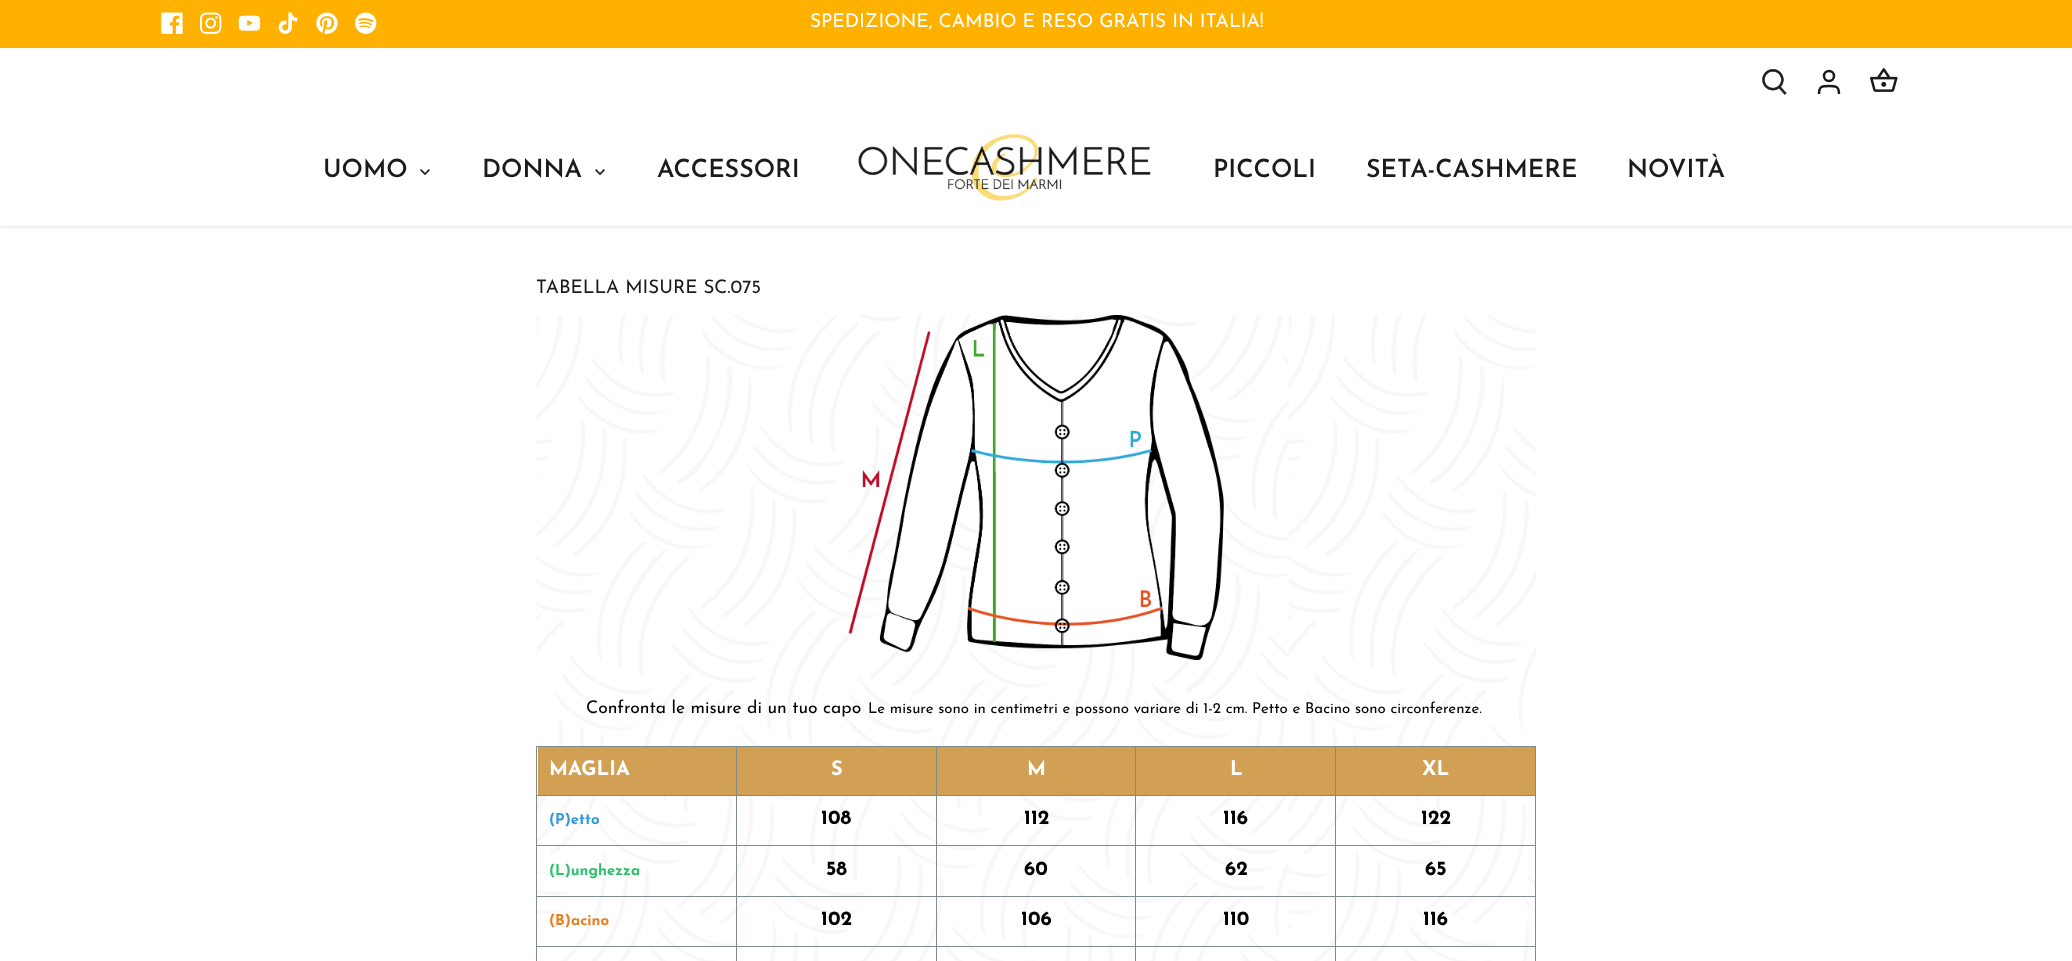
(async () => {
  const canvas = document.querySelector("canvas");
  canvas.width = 2072;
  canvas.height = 961;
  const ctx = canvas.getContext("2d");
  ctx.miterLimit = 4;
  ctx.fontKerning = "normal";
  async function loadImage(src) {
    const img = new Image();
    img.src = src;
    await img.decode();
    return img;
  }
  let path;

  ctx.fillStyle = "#ffffff";
  ctx.fillRect(0, 0, 2072, 961);
  ctx.save();
  ctx.beginPath();
  ctx.rect(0, 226, 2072, 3);
  ctx.clip();
  ctx.fillStyle = "rgba(0, 0, 0, 0.08)";
  ctx.filter = "blur(2px)";
  ctx.beginPath();
  ctx.rect(-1, 46, 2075, 182);
  ctx.fill();
  ctx.filter = "none";
  ctx.restore();
  ctx.fillStyle = "#ffb100";
  ctx.fillRect(0, 0, 2072, 48);
  ctx.drawImage(await loadImage("img/1.png"), 161, 12, 22, 22);
  ctx.drawImage(await loadImage("img/2.png"), 200, 12, 22, 22);
  ctx.drawImage(await loadImage("img/3.png"), 238, 15, 23, 16);
  ctx.drawImage(await loadImage("img/4.png"), 278, 12, 20, 22);
  ctx.drawImage(await loadImage("img/5.png"), 316, 12, 22, 22);
  ctx.drawImage(await loadImage("img/6.png"), 355, 12, 22, 22);
  ctx.drawImage(await loadImage("img/7.png"), 1762, 69, 25, 26);
  ctx.beginPath();
  ctx.arc(1829, 76, 5, 0, Math.PI * 2);
  ctx.strokeStyle = "#1b1b1b";
  ctx.lineWidth = 2.5;
  ctx.stroke();
  path = new Path2D("M1839 94C1839 86 1835.5 86 1829 86C1822 86 1819 86 1819 94");
  ctx.stroke(path);
  ctx.drawImage(await loadImage("img/8.png"), 1870, 68, 28, 24);
  ctx.drawImage(await loadImage("img/9.png"), 420, 169, 10, 6);
  ctx.drawImage(await loadImage("img/9.png"), 595, 169, 10, 6);
  ctx.drawImage(await loadImage("img/10.png"), 858, 134, 293, 67);
  ctx.drawImage(await loadImage("img/11.png"), 536, 315, 1000, 646);
  ctx.drawImage(await loadImage("img/12.png"), 848, 315, 376, 345);
  for (const [x, y, w, h, color] of [
    [536, 746, 1000, 1, "#7e8c8d"],
    [1535, 746, 1, 215, "#7e8c8d"],
    [536, 746, 1, 215, "#7e8c8d"],
    [538, 747, 997, 48, "#d1a054"],
    [1335, 795, 201, 1, "#7e8c8d"],
    [1335, 845, 201, 1, "#7e8c8d"],
    [1335, 896, 201, 1, "#7e8c8d"],
    [1335, 946, 201, 1, "#7e8c8d"],
    [1335, 946, 1, 15, "#7e8c8d"],
    [1135, 946, 201, 1, "#7e8c8d"],
    [1335, 896, 1, 52, "#7e8c8d"],
    [1135, 896, 201, 1, "#7e8c8d"],
    [1335, 845, 1, 53, "#7e8c8d"],
    [1135, 845, 201, 1, "#7e8c8d"],
    [1335, 795, 1, 51, "#7e8c8d"],
    [1135, 795, 201, 1, "#7e8c8d"],
    [1135, 946, 1, 15, "#7e8c8d"],
    [936, 946, 200, 1, "#7e8c8d"],
    [1135, 896, 1, 52, "#7e8c8d"],
    [936, 896, 200, 1, "#7e8c8d"],
    [1135, 845, 1, 53, "#7e8c8d"],
    [936, 845, 200, 1, "#7e8c8d"],
    [1135, 795, 1, 51, "#7e8c8d"],
    [936, 795, 200, 1, "#7e8c8d"],
    [936, 946, 1, 15, "#7e8c8d"],
    [736, 946, 202, 1, "#7e8c8d"],
    [936, 896, 1, 52, "#7e8c8d"],
    [736, 896, 202, 1, "#7e8c8d"],
    [936, 845, 1, 53, "#7e8c8d"],
    [736, 845, 202, 1, "#7e8c8d"],
    [936, 795, 1, 51, "#7e8c8d"],
    [736, 795, 202, 1, "#7e8c8d"],
    [736, 946, 1, 15, "#7e8c8d"],
    [536, 946, 202, 1, "#7e8c8d"],
    [736, 896, 1, 52, "#7e8c8d"],
    [536, 896, 202, 1, "#7e8c8d"],
    [736, 845, 1, 53, "#7e8c8d"],
    [536, 845, 202, 1, "#7e8c8d"],
    [736, 795, 1, 51, "#7e8c8d"],
    [536, 795, 202, 1, "#7e8c8d"],
    [736, 746, 1, 50, "#7e8c8d"],
    [936, 746, 1, 50, "#7e8c8d"],
    [1135, 746, 1, 50, "#7e8c8d"],
    [1335, 746, 1, 50, "#7e8c8d"],
  ]) {
    ctx.fillStyle = color;
    ctx.fillRect(x, y, w, h);
  }
  ctx.font = "19px Josefin Sans";
  ctx.fillStyle = "#ffffff";
  ctx.fillText("SPEDIZIONE, CAMBIO E RESO GRATIS IN ITALIA!", 810, 27);
  ctx.font = "600 25px Josefin Sans";
  ctx.fillStyle = "#1b1b1b";
  for (const [text, x, y] of [
    ["UOMO", 323, 177],
    ["DONNA", 482, 177],
    ["ACCESSORI", 657, 177],
    ["PICCOLI", 1213, 177],
    ["SETA-CASHMERE", 1366, 177],
    ["NOVITÀ", 1627, 177],
  ]) {
    ctx.fillText(text, x, y);
  }
  ctx.font = "18.75px Josefin Sans";
  ctx.fillText("TABELLA MISURE SC.075", 536, 293);
  ctx.font = "17.5px Josefin Sans";
  ctx.fillStyle = "#000000";
  ctx.fillText("Confronta le misure di un tuo capo", 586, 713);
  ctx.font = "15px Josefin Sans";
  ctx.fillText("Le misure sono in centimetri e possono variare di 1-2 cm. Petto e Bacino sono circonferenze.", 868, 713);
  ctx.font = "bold 20px Josefin Sans";
  ctx.fillStyle = "#ffffff";
  for (const [text, x, y] of [
    ["MAGLIA", 549, 775],
    ["S", 831, 775],
    ["M", 1027, 775],
    ["L", 1230, 775],
    ["XL", 1422, 775],
  ]) {
    ctx.fillText(text, x, y);
  }
  ctx.font = "bold 15px Josefin Sans";
  ctx.fillStyle = "#3598db";
  ctx.fillText("(P)etto", 549, 824);
  ctx.font = "bold 20px Josefin Sans";
  ctx.fillStyle = "#000000";
  for (const [text, x, y] of [
    ["108", 821, 824],
    ["112", 1024, 824],
    ["116", 1223, 824],
    ["122", 1421, 824],
  ]) {
    ctx.fillText(text, x, y);
  }
  ctx.font = "bold 15px Josefin Sans";
  ctx.fillStyle = "#2dc26b";
  ctx.fillText("(L)unghezza", 549, 875);
  ctx.font = "bold 20px Josefin Sans";
  ctx.fillStyle = "#000000";
  for (const [text, x, y] of [
    ["58", 826, 875],
    ["60", 1024, 875],
    ["62", 1225, 875],
    ["65", 1425, 875],
  ]) {
    ctx.fillText(text, x, y);
  }
  ctx.font = "bold 15px Josefin Sans";
  ctx.fillStyle = "#e67e23";
  ctx.fillText("(B)acino", 549, 925);
  ctx.font = "bold 20px Josefin Sans";
  ctx.fillStyle = "#000000";
  for (const [text, x, y] of [
    ["102", 821, 925],
    ["106", 1021, 925],
    ["110", 1223, 925],
    ["116", 1423, 925],
  ]) {
    ctx.fillText(text, x, y);
  }
})();
